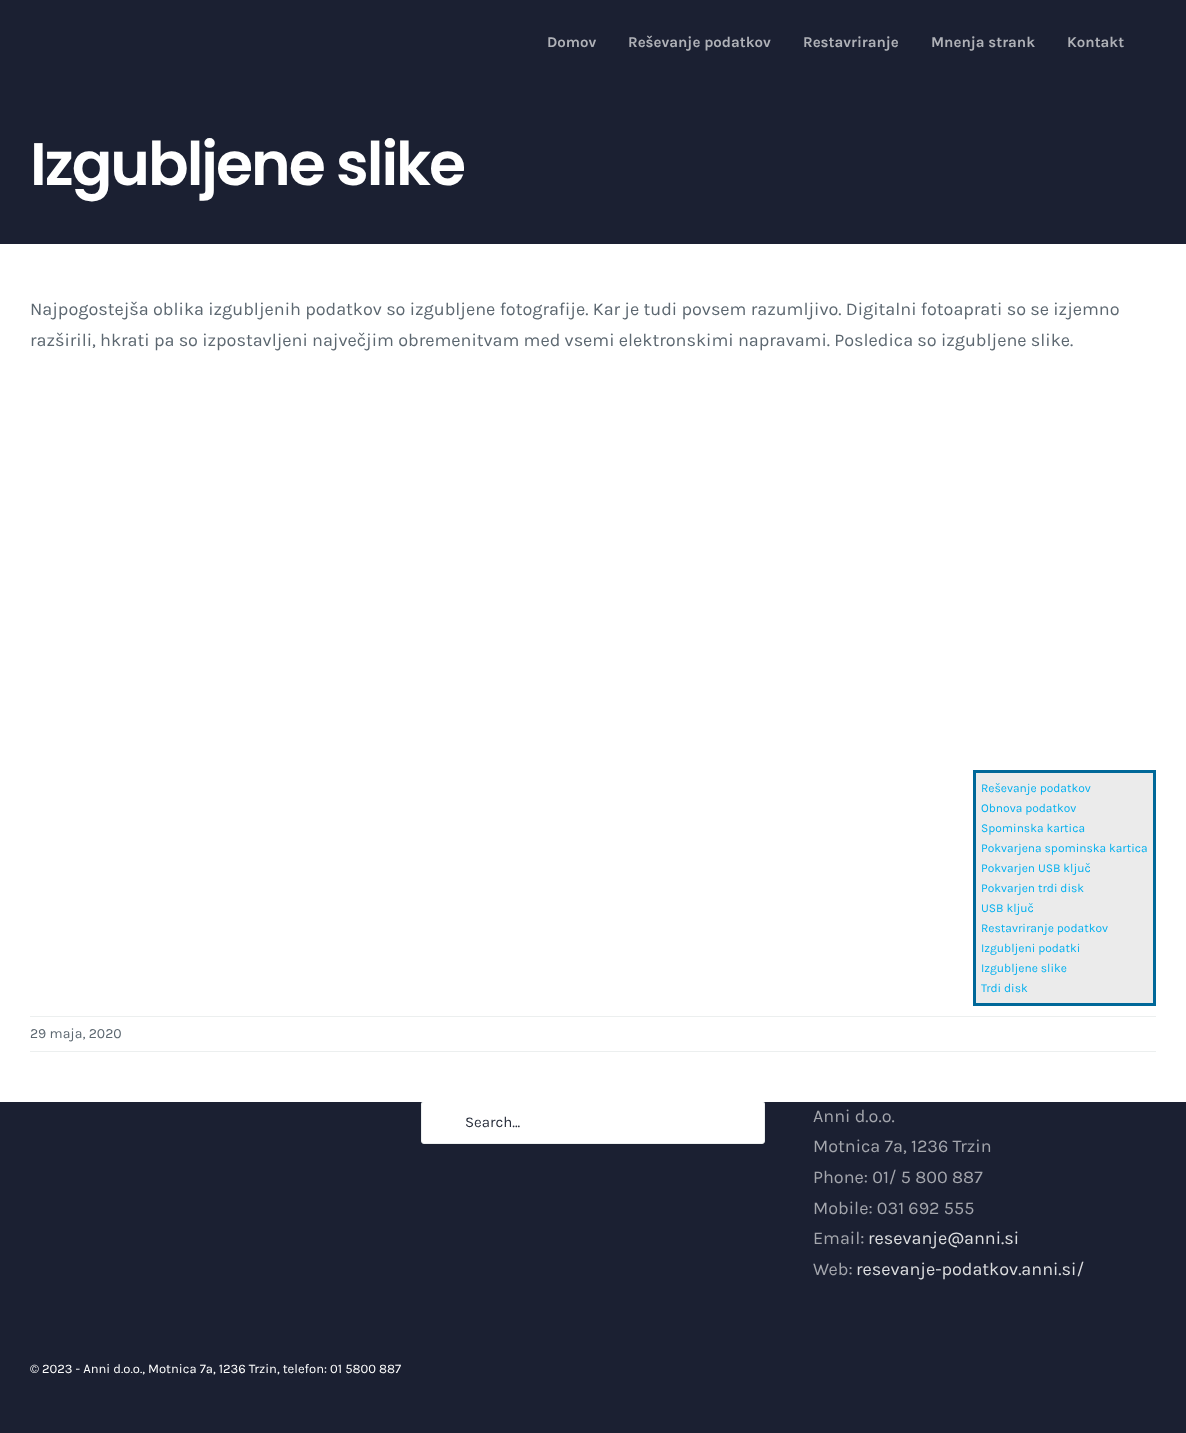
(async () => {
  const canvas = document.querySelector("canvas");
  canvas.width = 1186;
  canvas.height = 1433;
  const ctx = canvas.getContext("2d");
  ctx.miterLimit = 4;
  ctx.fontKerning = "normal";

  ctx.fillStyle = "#1b2032";
  ctx.fillRect(0, 0, 1186, 1433);
  ctx.fillStyle = "#ffffff";
  ctx.beginPath();
  ctx.roundRect(421.5, 1101.5, 343, 42, 2.5);
  ctx.fill();
  ctx.strokeStyle = "#ecefef";
  ctx.stroke();
  ctx.fillRect(0, 244, 1186, 858);
  ctx.fillStyle = "#ebebeb";
  ctx.beginPath();
  ctx.rect(974.5, 771.5, 180, 233);
  ctx.fill();
  ctx.strokeStyle = "#006899";
  ctx.lineWidth = 3;
  ctx.stroke();
  ctx.fillStyle = "#ecefef";
  ctx.fillRect(30, 1016, 1126, 1);
  ctx.fillRect(30, 1051, 1126, 1);
  ctx.font = "bold 15px Karla";
  ctx.fillStyle = "#afb1b7";
  for (const [text, x, y] of [
    ["Domov", 547, 47],
    ["Reševanje podatkov", 628, 47],
    ["Restavriranje", 803, 47],
    ["Mnenja strank", 931, 47],
    ["Kontakt", 1067, 47],
  ]) {
    ctx.fillText(text, x, y);
  }
  ctx.letterSpacing = "-2px";
  ctx.font = "600 60px Poppins";
  ctx.fillStyle = "#ffffff";
  ctx.fillText("Izgubljene slike", 30, 185);
  ctx.letterSpacing = "0px";
  ctx.font = "18px Karla";
  ctx.fillStyle = "#5c6770";
  ctx.fillText("Najpogostejša oblika izgubljenih podatkov so izgubljene fotografije. Kar je tudi povsem razumljivo. Digitalni fotoaprati so se izjemno", 30, 315);
  ctx.fillText("razširili, hkrati pa so izpostavljeni največjim obremenitvam med vsemi elektronskimi napravami. Posledica so izgubljene slike.", 30, 346);
  ctx.font = "12px Karla";
  ctx.fillStyle = "#00afef";
  for (const [text, x, y] of [
    ["Reševanje podatkov", 981, 792],
    ["Obnova podatkov", 981, 812],
    ["Spominska kartica", 981, 832],
    ["Pokvarjena spominska kartica", 981, 852],
    ["Pokvarjen USB ključ", 981, 872],
    ["Pokvarjen trdi disk", 981, 892],
    ["USB ključ", 981, 912],
    ["Restavriranje podatkov", 981, 932],
    ["Izgubljeni podatki", 981, 952],
    ["Izgubljene slike", 981, 972],
    ["Trdi disk", 981, 992],
  ]) {
    ctx.fillText(text, x, y);
  }
  ctx.font = "14px Karla";
  ctx.fillStyle = "#5c6770";
  ctx.fillText("29 maja, 2020", 30, 1038);
  ctx.font = "15px Karla";
  ctx.fillStyle = "#272d3a";
  ctx.fillText("Search...", 465, 1127);
  ctx.font = "18px Karla";
  ctx.fillStyle = "#a4a6ad";
  for (const [text, x, y] of [
    ["Anni d.o.o.", 813, 1122],
    ["Motnica 7a, 1236 Trzin", 813, 1152],
    ["Phone: 01/ 5 800 887", 813, 1183],
    ["Mobile: 031 692 555", 813, 1214],
    ["Email:", 813, 1244],
  ]) {
    ctx.fillText(text, x, y);
  }
  ctx.fillStyle = "#dddee0";
  ctx.fillText("resevanje@anni.si", 868, 1244);
  ctx.fillStyle = "#a4a6ad";
  ctx.fillText("Web:", 813, 1275);
  ctx.fillStyle = "#dddee0";
  ctx.fillText("resevanje-podatkov.anni.si/", 856, 1275);
  ctx.font = "13px Karla";
  ctx.fillStyle = "#ffffff";
  ctx.fillText("© 2023 - Anni d.o.o., Motnica 7a, 1236 Trzin, telefon: 01 5800 887", 30, 1373);
})();
